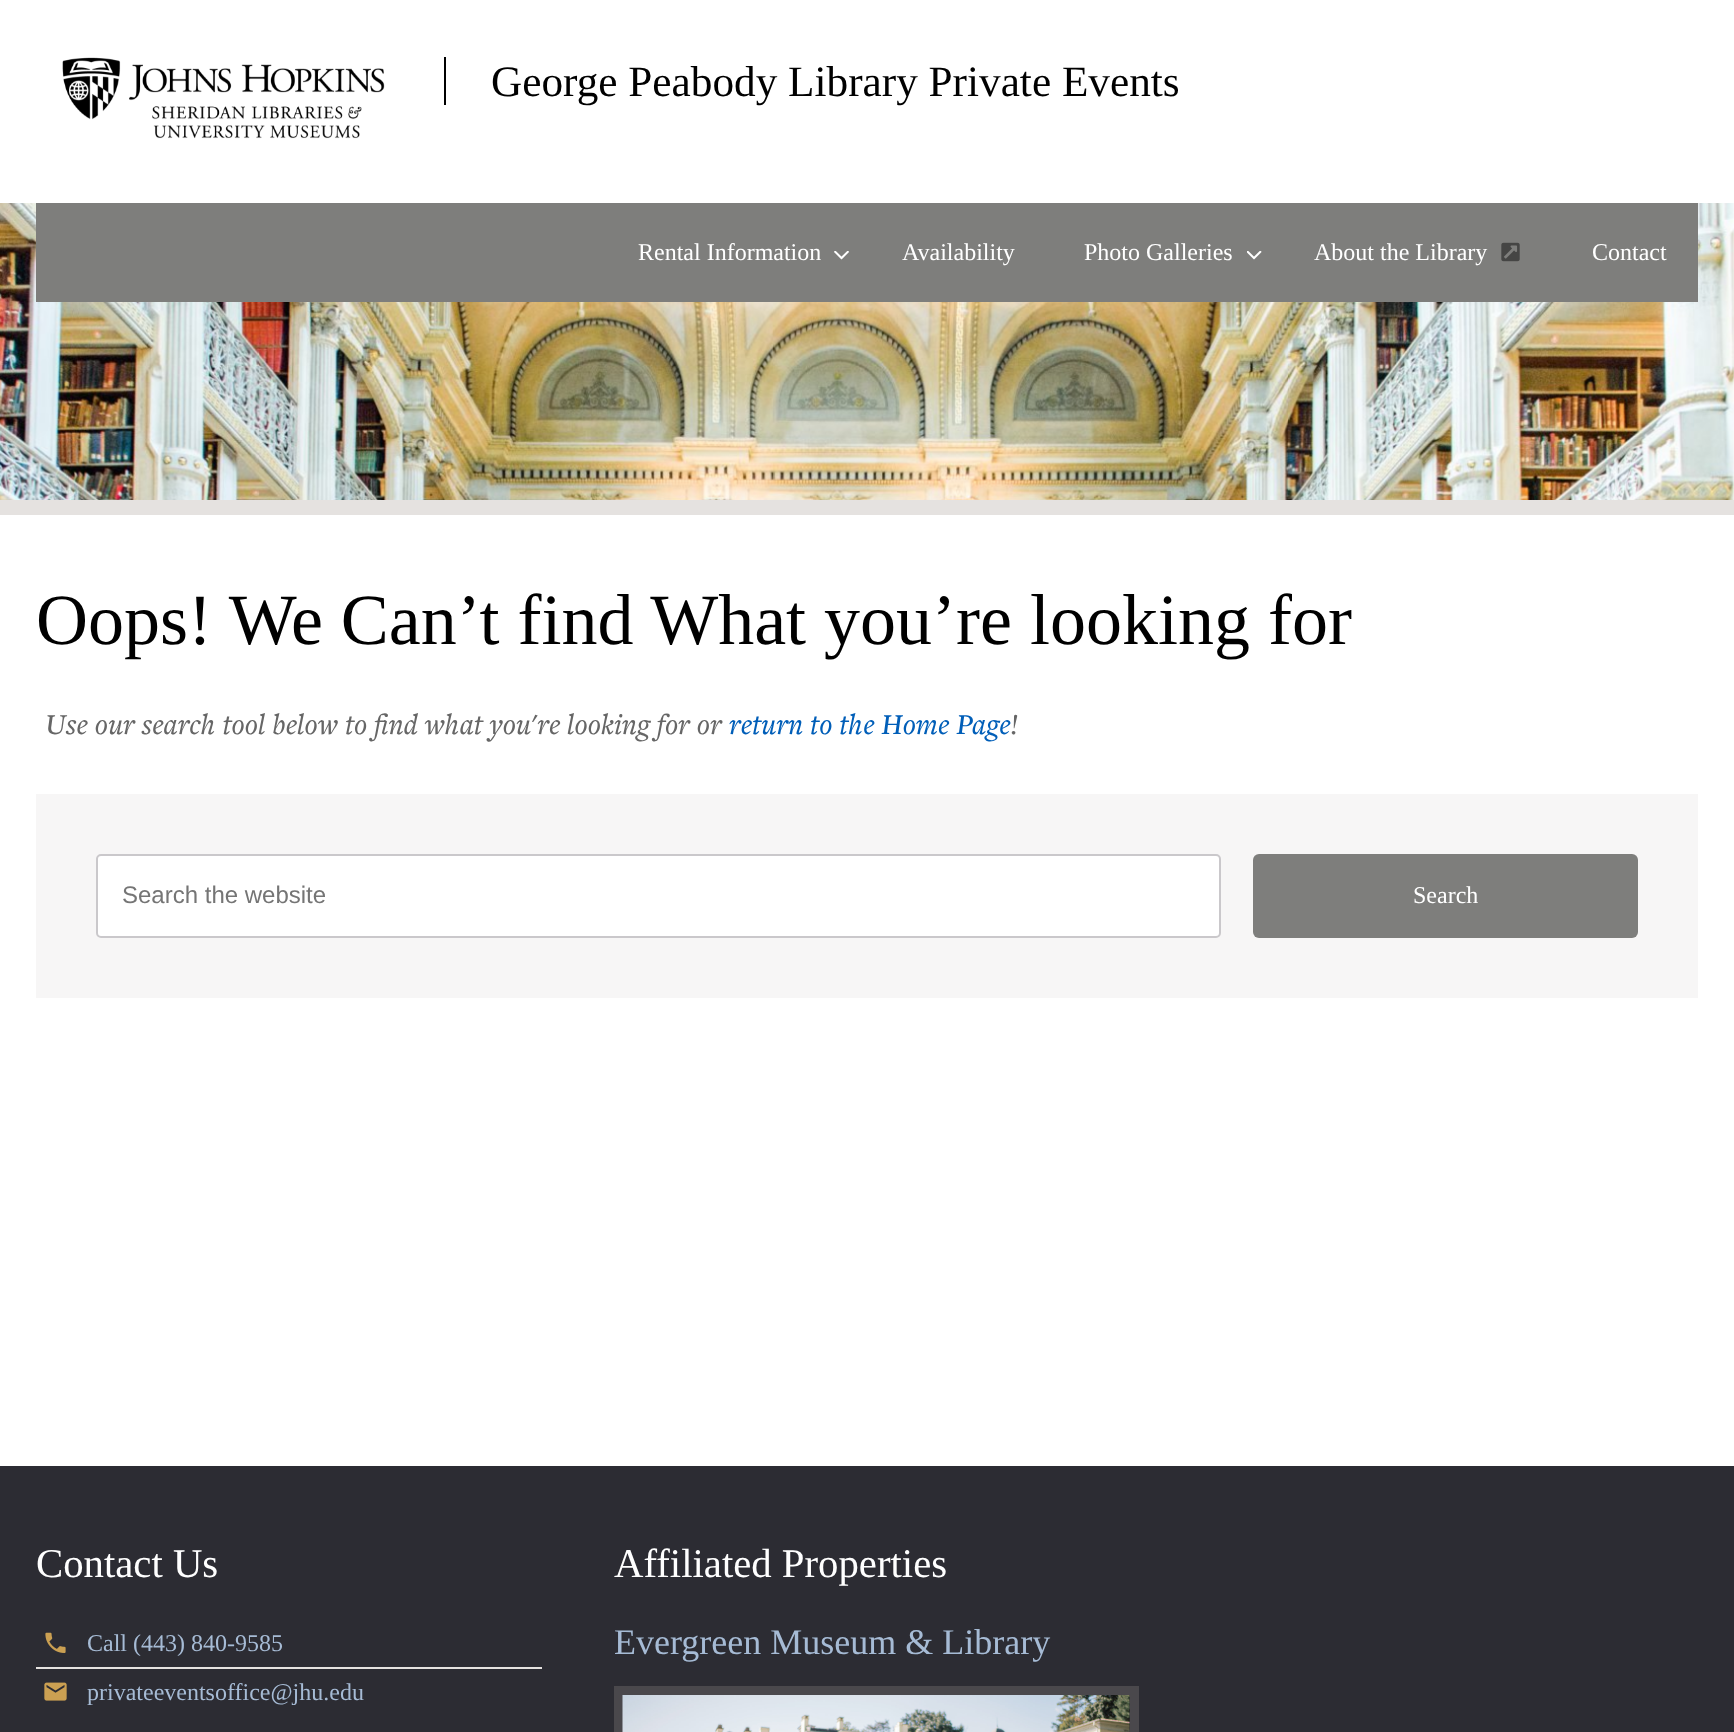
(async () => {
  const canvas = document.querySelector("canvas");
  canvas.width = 1734;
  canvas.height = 1732;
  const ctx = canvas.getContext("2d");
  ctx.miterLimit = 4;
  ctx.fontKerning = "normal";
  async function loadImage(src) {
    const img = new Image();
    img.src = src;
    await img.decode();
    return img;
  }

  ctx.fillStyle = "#ffffff";
  ctx.fillRect(0, 0, 1734, 1732);
  ctx.drawImage(await loadImage("img/1.png"), 62, 57, 323, 82);
  ctx.fillStyle = "#000000";
  ctx.fillRect(444, 57, 2, 48);
  ctx.drawImage(await loadImage("img/2.png"), 0, 203, 1734, 297);
  ctx.fillStyle = "#e5e2e0";
  ctx.fillRect(0, 500, 1734, 15);
  ctx.fillStyle = "#7e7e7c";
  ctx.fillRect(36, 203, 1662, 99);
  ctx.drawImage(await loadImage("img/3.png"), 834, 251, 15, 9);
  ctx.drawImage(await loadImage("img/4.png"), 1247, 251, 15, 9);
  ctx.drawImage(await loadImage("img/5.png"), 1501, 242, 19, 20);
  ctx.fillStyle = "#f7f6f6";
  ctx.fillRect(36, 794, 1662, 204);
  ctx.fillStyle = "#ffffff";
  ctx.beginPath();
  ctx.roundRect(97, 855, 1123, 82, 4);
  ctx.fill();
  ctx.strokeStyle = "#cac8cb";
  ctx.lineWidth = 2;
  ctx.stroke();
  ctx.fillStyle = "#7e7e7c";
  ctx.beginPath();
  ctx.roundRect(1253, 854, 385, 84, 6);
  ctx.fill();
  ctx.fillStyle = "#2c2c33";
  ctx.fillRect(0, 1466, 1734, 266);
  ctx.fillStyle = "#e5e2e0";
  ctx.fillRect(36, 1667, 506, 2);
  ctx.drawImage(await loadImage("img/6.png"), 45, 1632, 21, 21);
  ctx.drawImage(await loadImage("img/7.png"), 44, 1682, 23, 19);
  ctx.strokeStyle = "#4a484c";
  ctx.lineWidth = 9;
  ctx.strokeRect(618.5, 1690.5, 516, 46);
  ctx.drawImage(await loadImage("img/8.png"), 622, 1695, 508, 37);
  ctx.font = "43.25px Liberation Serif";
  ctx.fillStyle = "#000000";
  ctx.fillText("George Peabody Library Private Events", 491, 96);
  ctx.font = "24px Liberation Serif";
  ctx.fillStyle = "#ffffff";
  for (const [text, x, y] of [
    ["Rental Information", 638, 260],
    ["Availability", 902, 260],
    ["Photo Galleries", 1084, 260],
    ["About the Library", 1314, 260],
    ["Contact", 1592, 260],
  ]) {
    ctx.fillText(text, x, y);
  }
  ctx.font = "72px Liberation Serif";
  ctx.fillStyle = "#000000";
  ctx.fillText("Oops! We Can’t find What you’re looking for", 36, 644);
  ctx.font = "italic 500 30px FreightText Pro";
  ctx.fillStyle = "#666666";
  ctx.fillText("Use our search tool below to find what you're looking for or", 45, 734);
  ctx.fillStyle = "#005eb8";
  ctx.fillText("return to the Home Page", 729, 734);
  ctx.fillStyle = "#666666";
  ctx.fillText("!", 1010, 734);
  ctx.font = "24px Liberation Sans";
  ctx.fillStyle = "#757575";
  ctx.fillText("Search the website", 122, 903);
  ctx.font = "24px Liberation Serif";
  ctx.fillStyle = "#ffffff";
  ctx.fillText("Search", 1413, 903);
  ctx.font = "40.75px Liberation Serif";
  ctx.fillText("Contact Us", 36, 1577);
  ctx.font = "24px Liberation Serif";
  ctx.fillStyle = "#a6bbd5";
  ctx.fillText("Call (443) 840-9585", 87, 1651);
  ctx.fillText("privateeventsoffice@jhu.edu", 87, 1700);
  ctx.font = "40.75px Liberation Serif";
  ctx.fillStyle = "#ffffff";
  ctx.fillText("Affiliated Properties", 614, 1577);
  ctx.font = "36px Liberation Serif";
  ctx.fillStyle = "#a6bbd5";
  ctx.fillText("Evergreen Museum & Library", 614, 1654);
})();
